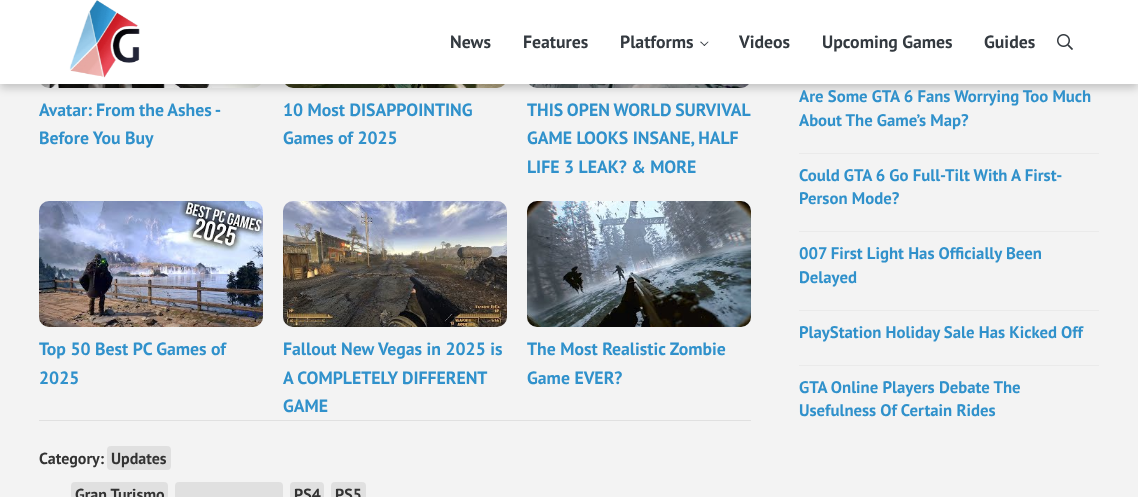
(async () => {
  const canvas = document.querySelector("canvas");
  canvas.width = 1138;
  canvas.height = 497;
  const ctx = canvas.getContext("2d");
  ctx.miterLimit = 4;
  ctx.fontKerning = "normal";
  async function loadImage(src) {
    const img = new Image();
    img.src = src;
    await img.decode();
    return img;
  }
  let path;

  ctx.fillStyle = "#f3f3f3";
  ctx.fillRect(0, 0, 1138, 497);
  ctx.drawImage(await loadImage("img/3.png"), 41, 84, 220, 4);
  ctx.drawImage(await loadImage("img/4.png"), 285, 84, 220, 4);
  ctx.drawImage(await loadImage("img/5.png"), 529, 84, 220, 4);
  ctx.fillStyle = "rgba(0, 0, 0, 0.2)";
  ctx.filter = "blur(4px)";
  ctx.beginPath();
  ctx.rect(0, 4, 1138, 84);
  ctx.fill();
  ctx.filter = "none";
  ctx.fillStyle = "#ffffff";
  ctx.fillRect(0, 0, 1138, 84);
  ctx.drawImage(await loadImage("img/1.png"), 69, 0, 71, 78);
  ctx.fillStyle = "#343a40";
  path = new Path2D("M708 41.5L708.5 42L704.5 46L703.5 45.5Z");
  ctx.fill(path);
  path = new Path2D("M701 41.5L705 45.5L704.5 46L700 42Z");
  ctx.fill(path);
  ctx.drawImage(await loadImage("img/2.png"), 1057, 34, 16, 16);
  ctx.drawImage(await loadImage("img/6.png"), 39, 201, 224, 126);
  ctx.drawImage(await loadImage("img/7.png"), 283, 201, 224, 126);
  ctx.drawImage(await loadImage("img/8.png"), 527, 201, 224, 126);
  ctx.fillStyle = "#e0e0e0";
  ctx.fillRect(39, 420, 712, 1);
  ctx.beginPath();
  ctx.roundRect(107, 446, 64, 24, 4);
  ctx.fill();
  ctx.beginPath();
  ctx.roundRect(71, 482, 97, 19, 4);
  ctx.fill();
  ctx.beginPath();
  ctx.roundRect(175, 482, 108, 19, 4);
  ctx.fill();
  ctx.beginPath();
  ctx.roundRect(290, 482, 34, 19, 4);
  ctx.fill();
  ctx.beginPath();
  ctx.roundRect(331, 482, 35, 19, 4);
  ctx.fill();
  for (const [x, y, w, h, color] of [
    [799, 153, 300, 1, "#eaeaea"],
    [799, 231, 300, 1, "#eaeaea"],
    [799, 310, 300, 1, "#eaeaea"],
    [799, 365, 300, 1, "#eaeaea"],
  ]) {
    ctx.fillStyle = color;
    ctx.fillRect(x, y, w, h);
  }
  ctx.font = "bold 17.75px PT Sans";
  ctx.fillStyle = "#343a40";
  for (const [text, x, y] of [
    ["News", 450, 48],
    ["Features", 523, 48],
    ["Platforms", 620, 48],
    ["Videos", 739, 48],
    ["Upcoming Games", 822, 48],
    ["Guides", 984, 48],
  ]) {
    ctx.fillText(text, x, y);
  }
  ctx.wordSpacing = "-0.5px";
  ctx.fillStyle = "#3091cb";
  ctx.fillText("Avatar: From the Ashes -", 39, 116);
  ctx.wordSpacing = "0px";
  for (const [text, x, y] of [
    ["Before You Buy", 39, 144],
    ["10 Most DISAPPOINTING", 283, 116],
    ["Games of 2025", 283, 144],
  ]) {
    ctx.fillText(text, x, y);
  }
  ctx.wordSpacing = "-0.5px";
  ctx.fillText("THIS OPEN WORLD SURVIVAL", 527, 116);
  ctx.wordSpacing = "0px";
  for (const [text, x, y] of [
    ["GAME LOOKS INSANE, HALF", 527, 144],
    ["LIFE 3 LEAK? & MORE", 527, 173],
    ["Top 50 Best PC Games of", 39, 355],
    ["2025", 39, 384],
    ["Fallout New Vegas in 2025 is", 283, 355],
    ["A COMPLETELY DIFFERENT", 283, 384],
    ["GAME", 283, 412],
    ["The Most Realistic Zombie", 527, 355],
    ["Game EVER?", 527, 384],
  ]) {
    ctx.fillText(text, x, y);
  }
  ctx.font = "bold 16px PT Sans";
  ctx.fillStyle = "#333333";
  for (const [text, x, y] of [
    ["Category:", 39, 464],
    ["Updates", 111, 464],
    ["Gran Turismo", 75, 500],
    ["PS4", 294, 500],
    ["PS5", 335, 500],
  ]) {
    ctx.fillText(text, x, y);
  }
  ctx.font = "bold 16.75px PT Sans";
  ctx.fillStyle = "#3091cb";
  for (const [text, x, y] of [
    ["Are Some GTA 6 Fans Worrying Too Much", 799, 102],
    ["About The Game’s Map?", 799, 126],
    ["Could GTA 6 Go Full-Tilt With A First-", 799, 181],
    ["Person Mode?", 799, 204],
    ["007 First Light Has Officially Been", 799, 259],
    ["Delayed", 799, 283],
    ["PlayStation Holiday Sale Has Kicked Off", 799, 338],
    ["GTA Online Players Debate The", 799, 393],
    ["Usefulness Of Certain Rides", 799, 416],
  ]) {
    ctx.fillText(text, x, y);
  }
})();
